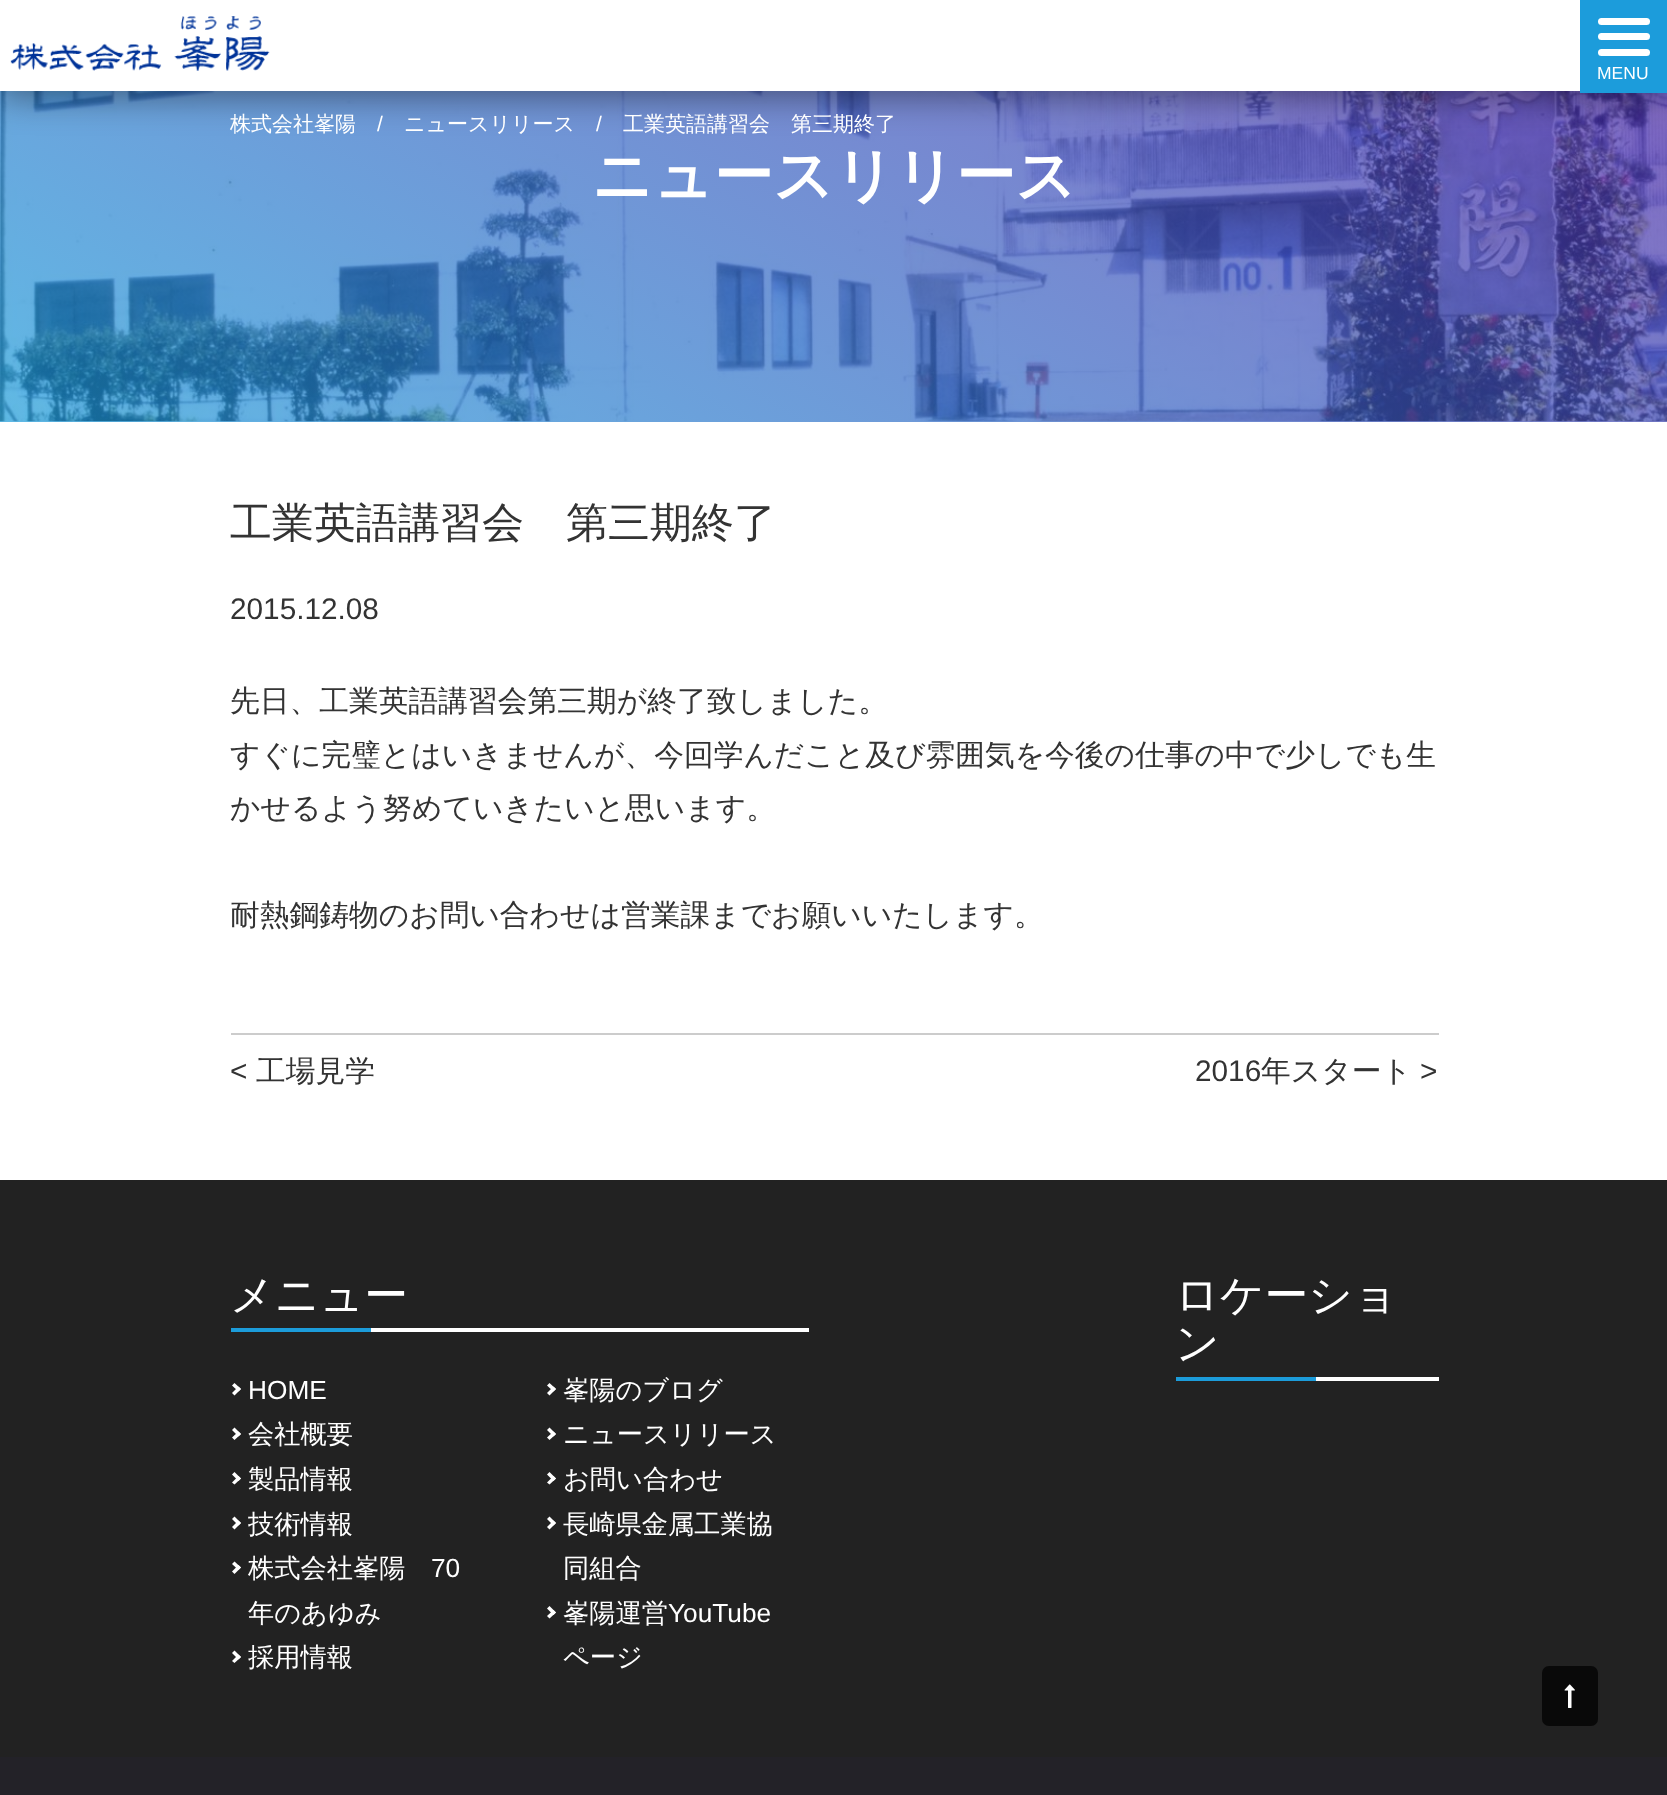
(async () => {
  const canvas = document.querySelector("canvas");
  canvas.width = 1667;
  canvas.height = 1795;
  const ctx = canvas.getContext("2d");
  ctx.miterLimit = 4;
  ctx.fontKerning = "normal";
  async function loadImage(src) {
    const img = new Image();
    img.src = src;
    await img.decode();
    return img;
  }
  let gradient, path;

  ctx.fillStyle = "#ffffff";
  ctx.fillRect(0, 0, 1667, 1795);
  ctx.drawImage(await loadImage("img/2.png"), 0, 91, 1667, 331);
  gradient = ctx.createLinearGradient(1162, -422, 506, 714);
  gradient.addColorStop(0, "rgba(88, 27, 163, 0.7)");
  gradient.addColorStop(1, "rgba(28, 156, 219, 0.7)");
  ctx.fillStyle = gradient;
  ctx.fillRect(0, 91, 1667, 331);
  ctx.fillStyle = "rgba(0, 0, 0, 0.43)";
  ctx.filter = "blur(17.5px)";
  ctx.beginPath();
  ctx.rect(0, 5, 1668, 91);
  ctx.fill();
  ctx.filter = "none";
  ctx.fillStyle = "#ffffff";
  ctx.fillRect(0, 0, 1580, 91);
  ctx.drawImage(await loadImage("img/1.png"), 10, 16, 260, 55);
  ctx.fillStyle = "#1c9cdb";
  ctx.fillRect(1580, 0, 87, 93);
  ctx.fillStyle = "#ffffff";
  ctx.beginPath();
  ctx.roundRect(1598, 18, 52, 7, 3.5);
  ctx.fill();
  ctx.beginPath();
  ctx.roundRect(1598, 33, 52, 7, 3.5);
  ctx.fill();
  ctx.beginPath();
  ctx.roundRect(1598, 49, 52, 7, 3.5);
  ctx.fill();
  for (const [x, y, w, h, color] of [
    [231, 1033, 1208, 2, "#cccccc"],
    [0, 1180, 1667, 577, "#222222"],
    [371, 1328, 438, 4, "#ffffff"],
    [231, 1328, 140, 4, "#1c9cda"],
  ]) {
    ctx.fillStyle = color;
    ctx.fillRect(x, y, w, h);
  }
  ctx.fillStyle = "#ffffff";
  path = new Path2D("M234.5 1383L241 1389L238.5 1391.5L232 1385.5Z");
  ctx.fill(path);
  path = new Path2D("M238.5 1386.5L241 1389L234.5 1395.5L232 1393Z");
  ctx.fill(path);
  path = new Path2D("M234.5 1427.5L241 1434L238.5 1436.5L232 1430Z");
  ctx.fill(path);
  path = new Path2D("M238.5 1431.5L241 1434L234.5 1440L232 1437.5Z");
  ctx.fill(path);
  path = new Path2D("M234.5 1472L241 1478.5L238.5 1481L232 1474.5Z");
  ctx.fill(path);
  path = new Path2D("M238.5 1476L241 1478.5L234.5 1484.5L232 1482.5Z");
  ctx.fill(path);
  path = new Path2D("M234.5 1516.5L241 1523L238.5 1525.5L232 1519Z");
  ctx.fill(path);
  path = new Path2D("M238.5 1520.5L241 1523L234.5 1529.5L232 1527Z");
  ctx.fill(path);
  path = new Path2D("M234.5 1561.5L241 1567.5L238.5 1570L232 1564Z");
  ctx.fill(path);
  path = new Path2D("M238.5 1565L241 1567.5L234.5 1574L232 1571.5Z");
  ctx.fill(path);
  path = new Path2D("M234.5 1650.5L241 1657L238.5 1659.5L232 1653Z");
  ctx.fill(path);
  path = new Path2D("M238.5 1654.5L241 1657L234.5 1663L232 1661Z");
  ctx.fill(path);
  path = new Path2D("M549.5 1383L556 1389L553.5 1391.5L547 1385.5Z");
  ctx.fill(path);
  path = new Path2D("M553.5 1386.5L556 1389L549.5 1395.5L547 1393Z");
  ctx.fill(path);
  path = new Path2D("M549.5 1427.5L556 1434L553.5 1436.5L547 1430Z");
  ctx.fill(path);
  path = new Path2D("M553.5 1431.5L556 1434L549.5 1440L547 1437.5Z");
  ctx.fill(path);
  path = new Path2D("M549.5 1472L556 1478.5L553.5 1481L547 1474.5Z");
  ctx.fill(path);
  path = new Path2D("M553.5 1476L556 1478.5L549.5 1484.5L547 1482.5Z");
  ctx.fill(path);
  path = new Path2D("M549.5 1516.5L556 1523L553.5 1525.5L547 1519Z");
  ctx.fill(path);
  path = new Path2D("M553.5 1520.5L556 1523L549.5 1529.5L547 1527Z");
  ctx.fill(path);
  path = new Path2D("M549.5 1606L556 1612.5L553.5 1615L547 1608.5Z");
  ctx.fill(path);
  path = new Path2D("M553.5 1610L556 1612.5L549.5 1618.5L547 1616Z");
  ctx.fill(path);
  ctx.fillRect(1316, 1377, 123, 4);
  ctx.fillStyle = "#1c9cda";
  ctx.fillRect(1176, 1377, 140, 4);
  ctx.fillStyle = "#090909";
  ctx.beginPath();
  ctx.roundRect(1542, 1666, 56, 60, 7);
  ctx.fill();
  ctx.drawImage(await loadImage("img/3.png"), 1564, 1684, 11, 24);
  ctx.fillStyle = "#232228";
  ctx.fillRect(0, 1757, 1667, 38);
  ctx.font = "17.5px Liberation Sans";
  ctx.fillStyle = "#ffffff";
  ctx.fillText("MENU", 1597, 79);
  ctx.font = "500 21px WenQuanYi Zen Hei";
  ctx.fillText("株式会社峯陽", 230, 131);
  ctx.font = "21px Liberation Sans";
  ctx.fillText("/", 377, 131);
  ctx.font = "500 21px WenQuanYi Zen Hei";
  ctx.fillText("ニュースリリース", 404, 131);
  ctx.font = "21px Liberation Sans";
  ctx.fillText("/", 596, 131);
  ctx.font = "500 21px WenQuanYi Zen Hei";
  ctx.fillText("工業英語講習会　第三期終了", 623, 131);
  ctx.font = "bold 59.5px WenQuanYi Zen Hei";
  ctx.fillText("ニュースリリース", 592, 196);
  ctx.font = "500 42px WenQuanYi Zen Hei";
  ctx.fillStyle = "#333333";
  ctx.fillText("工業英語講習会　第三期終了", 230, 537);
  ctx.font = "29.75px Liberation Sans";
  ctx.fillText("2015.12.08", 230, 619);
  ctx.font = "500 29.75px WenQuanYi Zen Hei";
  for (const [text, x, y] of [
    ["先日、工業英語講習会第三期が終了致しました。", 230, 711],
    ["すぐに完璧とはいきませんが、今回学んだこと及び雰囲気を今後の仕事の中で少しでも生", 230, 765],
    ["かせるよう努めていきたいと思います。", 230, 818],
    ["耐熱鋼鋳物のお問い合わせは営業課までお願いいたします。", 230, 925],
  ]) {
    ctx.fillText(text, x, y);
  }
  ctx.font = "29.75px Liberation Sans";
  ctx.fillText("<", 230, 1081);
  ctx.font = "500 29.75px WenQuanYi Zen Hei";
  ctx.fillText("工場見学", 256, 1081);
  ctx.font = "29.75px Liberation Sans";
  ctx.fillText("2016", 1195, 1081);
  ctx.font = "500 29.75px WenQuanYi Zen Hei";
  ctx.fillText("年スタート", 1261, 1081);
  ctx.font = "29.75px Liberation Sans";
  ctx.fillText(">", 1420, 1081);
  ctx.font = "500 43.75px WenQuanYi Zen Hei";
  ctx.fillStyle = "#ffffff";
  ctx.fillText("メニュー", 230, 1310);
  ctx.font = "26.25px Liberation Sans";
  ctx.fillText("HOME", 248, 1399);
  ctx.font = "500 26.25px WenQuanYi Zen Hei";
  for (const [text, x, y] of [
    ["会社概要", 248, 1443],
    ["製品情報", 248, 1488],
    ["技術情報", 248, 1533],
    ["株式会社峯陽", 248, 1577],
  ]) {
    ctx.fillText(text, x, y);
  }
  ctx.font = "26.25px Liberation Sans";
  ctx.fillText("70", 431, 1577);
  ctx.font = "500 26.25px WenQuanYi Zen Hei";
  for (const [text, x, y] of [
    ["年のあゆみ", 248, 1622],
    ["採用情報", 248, 1666],
    ["峯陽のブログ", 563, 1399],
    ["ニュースリリース", 563, 1443],
    ["お問い合わせ", 563, 1488],
    ["長崎県金属工業協", 563, 1533],
    ["同組合", 563, 1577],
    ["峯陽運営", 563, 1622],
  ]) {
    ctx.fillText(text, x, y);
  }
  ctx.font = "26.25px Liberation Sans";
  ctx.fillText("YouTube", 668, 1622);
  ctx.font = "500 26.25px WenQuanYi Zen Hei";
  ctx.fillText("ページ", 563, 1666);
  ctx.font = "500 43.75px WenQuanYi Zen Hei";
  ctx.fillText("ロケーショ", 1175, 1310);
  ctx.fillText("ン", 1175, 1358);
})();
